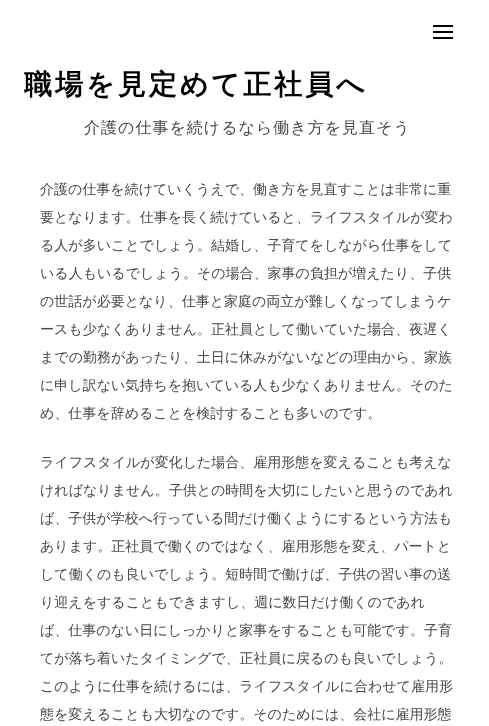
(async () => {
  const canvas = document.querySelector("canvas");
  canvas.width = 489;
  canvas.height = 726;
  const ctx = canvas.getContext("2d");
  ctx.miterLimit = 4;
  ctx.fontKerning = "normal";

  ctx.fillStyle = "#ffffff";
  ctx.fillRect(0, 0, 489, 726);
  for (const [x, y, w, h, color] of [
    [433, 25, 20, 2, "#000000"],
    [433, 31, 20, 2, "#000000"],
    [433, 37, 20, 2, "#000000"],
  ]) {
    ctx.fillStyle = color;
    ctx.fillRect(x, y, w, h);
  }
  ctx.letterSpacing = "3px";
  ctx.font = "bold 28px WenQuanYi Zen Hei";
  ctx.fillText("職場を見定めて正社員へ", 24, 94);
  ctx.letterSpacing = "1px";
  ctx.font = "500 16px WenQuanYi Zen Hei";
  ctx.fillStyle = "#484848";
  ctx.fillText("介護の仕事を続けるなら働き方を見直そう", 84, 133);
  ctx.letterSpacing = "0px";
  ctx.font = "500 14px WenQuanYi Zen Hei";
  for (const [text, x, y] of [
    ["介護の仕事を続けていくうえで、働き方を見直すことは非常に重", 40, 194],
    ["要となります。仕事を長く続けていると、ライフスタイルが変わ", 40, 222],
    ["る人が多いことでしょう。結婚し、子育てをしながら仕事をして", 40, 250],
    ["いる人もいるでしょう。その場合、家事の負担が増えたり、子供", 40, 278],
    ["の世話が必要となり、仕事と家庭の両立が難しくなってしまうケ", 40, 306],
    ["ースも少なくありません。正社員として働いていた場合、夜遅く", 40, 334],
    ["までの勤務があったり、土日に休みがないなどの理由から、家族", 40, 362],
    ["に申し訳ない気持ちを抱いている人も少なくありません。そのた", 40, 390],
    ["め、仕事を辞めることを検討することも多いのです。", 40, 418],
    ["ライフスタイルが変化した場合、雇用形態を変えることも考えな", 40, 467],
    ["ければなりません。子供との時間を大切にしたいと思うのであれ", 40, 495],
    ["ば、子供が学校へ行っている間だけ働くようにするという方法も", 40, 523],
    ["あります。正社員で働くのではなく、雇用形態を変え、パートと", 40, 551],
    ["して働くのも良いでしょう。短時間で働けば、子供の習い事の送", 40, 579],
    ["り迎えをすることもできますし、週に数日だけ働くのであれ", 40, 607],
    ["ば、仕事のない日にしっかりと家事をすることも可能です。子育", 40, 635],
    ["てが落ち着いたタイミングで、正社員に戻るのも良いでしょう。", 40, 663],
    ["このように仕事を続けるには、ライフスタイルに合わせて雇用形", 40, 691],
    ["態を変えることも大切なのです。そのためには、会社に雇用形態", 40, 719],
  ]) {
    ctx.fillText(text, x, y);
  }
})();
